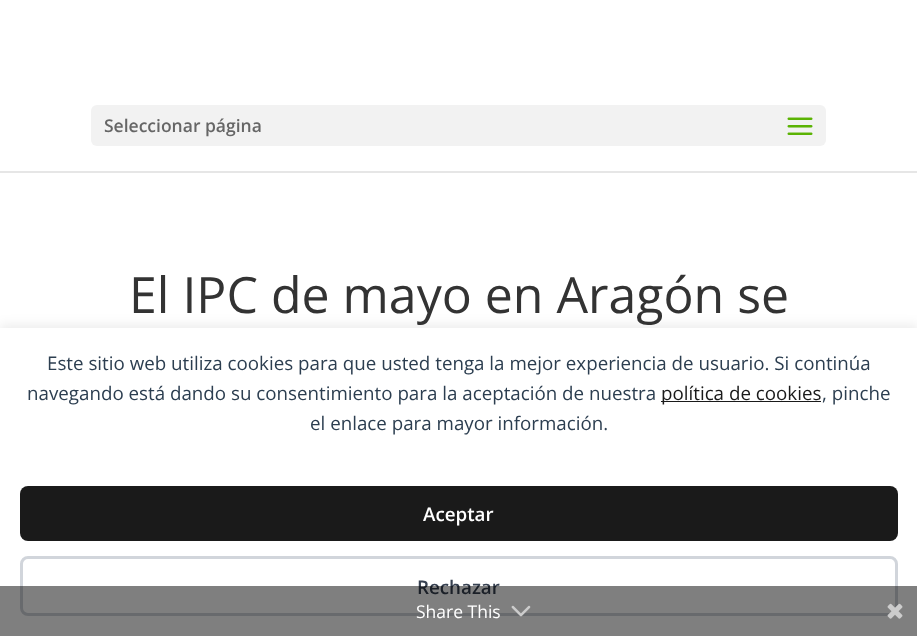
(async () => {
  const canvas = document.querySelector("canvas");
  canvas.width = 917;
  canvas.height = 636;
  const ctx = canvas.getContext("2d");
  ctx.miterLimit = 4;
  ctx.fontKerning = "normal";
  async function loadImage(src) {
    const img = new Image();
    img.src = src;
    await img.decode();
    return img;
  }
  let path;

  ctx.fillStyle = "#ffffff";
  ctx.fillRect(0, 0, 917, 636);
  ctx.fillStyle = "#e6e6e6";
  path = new Path2D("M0 171V173H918V1V171Z");
  ctx.fill(path);
  ctx.fillStyle = "#f2f2f2";
  ctx.beginPath();
  ctx.roundRect(91, 105, 735, 41, 6);
  ctx.fill();
  ctx.drawImage(await loadImage("img/1.png"), 787, 117, 26, 18);
  ctx.fillStyle = "rgba(0, 0, 0, 0.08)";
  ctx.filter = "blur(6px)";
  ctx.beginPath();
  ctx.rect(0, 325, 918, 309);
  ctx.fill();
  ctx.filter = "none";
  ctx.fillStyle = "#ffffff";
  ctx.fillRect(0, 328, 917, 308);
  ctx.fillStyle = "#1a1a1a";
  ctx.fillRect(661, 401, 160, 1);
  ctx.beginPath();
  ctx.roundRect(20, 486, 878, 55, 8);
  ctx.fill();
  ctx.beginPath();
  ctx.roundRect(21.5, 557.5, 875, 57, 6.5);
  ctx.strokeStyle = "#d1d5db";
  ctx.lineWidth = 3;
  ctx.stroke();
  ctx.font = "600 17.5px Open Sans";
  ctx.fillStyle = "#666666";
  ctx.fillText("Seleccionar página", 104, 132);
  ctx.font = "50px Open Sans";
  ctx.fillStyle = "#333333";
  ctx.fillText("El IPC de mayo en Aragón se", 129, 313);
  ctx.font = "18.75px Open Sans";
  ctx.fillStyle = "#2c3e50";
  ctx.fillText("Este sitio web utiliza cookies para que usted tenga la mejor experiencia de usuario. Si continúa", 47, 370);
  ctx.fillText("navegando está dando su consentimiento para la aceptación de nuestra", 27, 400);
  ctx.fillStyle = "#1a1a1a";
  ctx.fillText("política de cookies", 661, 400);
  ctx.fillStyle = "#2c3e50";
  ctx.fillText(", pinche", 822, 400);
  ctx.fillText("el enlace para mayor información.", 310, 430);
  ctx.font = "600 18.75px Open Sans";
  ctx.fillStyle = "#ffffff";
  ctx.fillText("Aceptar", 423, 521);
  ctx.fillStyle = "#374151";
  ctx.fillText("Rechazar", 417, 594);
  ctx.fillStyle = "rgba(0, 0, 0, 0.5)";
  ctx.fillRect(0, 586, 917, 50);
  ctx.font = "17.5px Open Sans";
  ctx.fillStyle = "#ffffff";
  ctx.fillText("Share This", 416, 618);
  ctx.drawImage(await loadImage("img/2.png"), 511, 605, 20, 12);
  ctx.drawImage(await loadImage("img/3.png"), 887, 603, 16, 16);
})();
